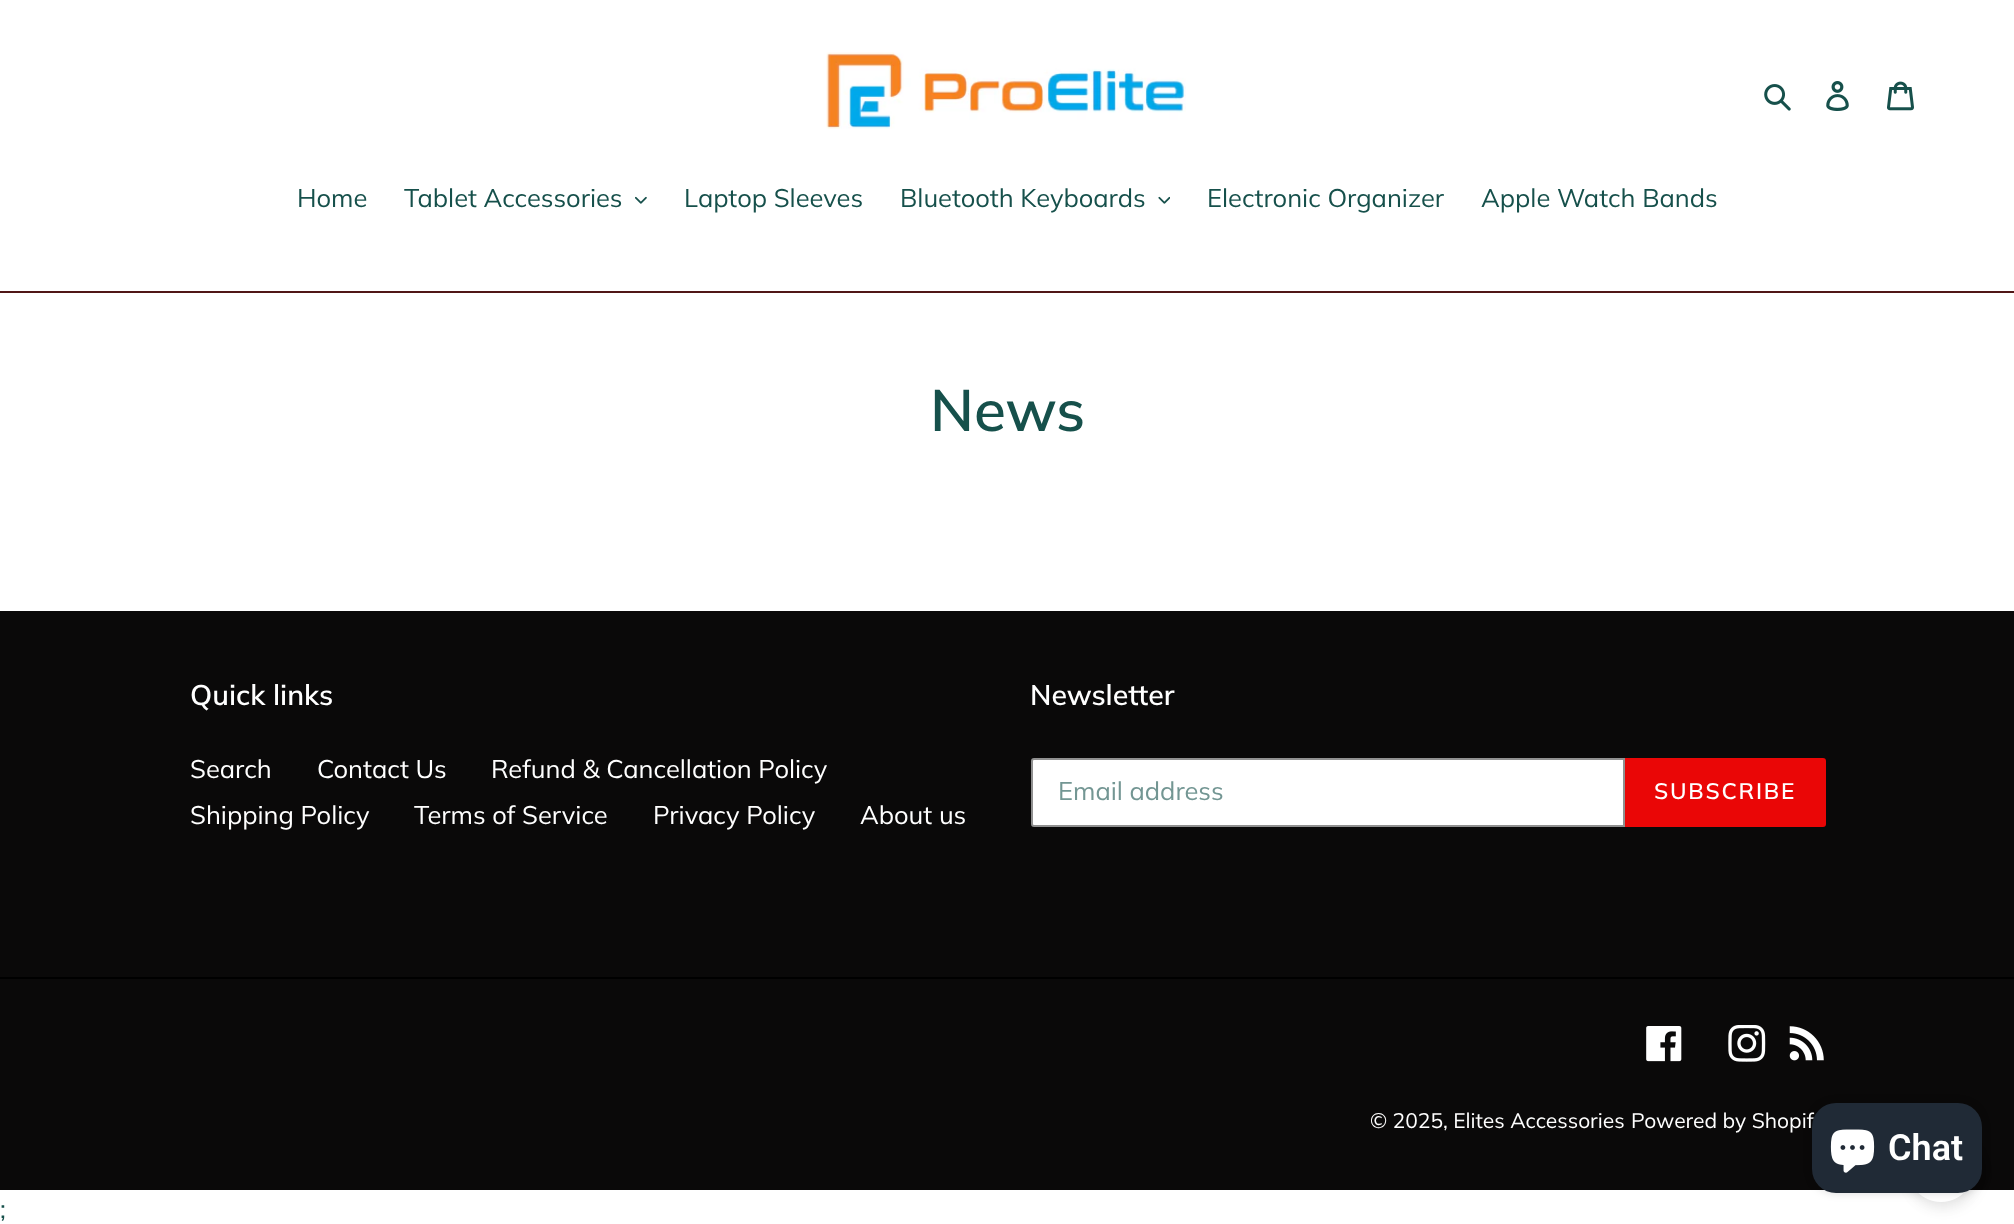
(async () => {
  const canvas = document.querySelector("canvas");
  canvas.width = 2014;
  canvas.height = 1224;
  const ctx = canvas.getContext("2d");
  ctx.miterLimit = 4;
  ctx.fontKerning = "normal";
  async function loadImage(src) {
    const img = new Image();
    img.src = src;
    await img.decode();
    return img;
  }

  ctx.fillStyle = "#ffffff";
  ctx.fillRect(0, 0, 2014, 1224);
  ctx.drawImage(await loadImage("img/1.png"), 826, 52, 360, 77);
  ctx.drawImage(await loadImage("img/2.png"), 1764, 84, 27, 27);
  ctx.drawImage(await loadImage("img/3.png"), 1826, 81, 23, 30);
  ctx.drawImage(await loadImage("img/4.png"), 1887, 81, 27, 30);
  ctx.fillStyle = "#501616";
  ctx.fillRect(0, 291, 2014, 2);
  ctx.drawImage(await loadImage("img/5.png"), 635, 196, 12, 8);
  ctx.drawImage(await loadImage("img/6.png"), 1158, 196, 12, 8);
  ctx.fillStyle = "#0a0909";
  ctx.fillRect(0, 611, 2014, 579);
  ctx.fillStyle = "#ffffff";
  ctx.beginPath();
  ctx.roundRect(1032, 759, 592, 67, [2, 0, 0, 2]);
  ctx.fill();
  ctx.strokeStyle = "#909090";
  ctx.lineWidth = 2;
  ctx.stroke();
  ctx.fillStyle = "#ea0606";
  ctx.beginPath();
  ctx.roundRect(1625, 758, 201, 69, [0, 3, 3, 0]);
  ctx.fill();
  ctx.fillStyle = "#000000";
  ctx.fillRect(0, 977, 2014, 2);
  ctx.drawImage(await loadImage("img/7.png"), 1646, 1026, 36, 36);
  ctx.drawImage(await loadImage("img/8.png"), 1728, 1025, 38, 37);
  ctx.drawImage(await loadImage("img/9.png"), 1789, 1026, 35, 35);
  ctx.fillStyle = "rgba(0, 0, 0, 0.07)";
  ctx.filter = "blur(7px)";
  ctx.beginPath();
  ctx.roundRect(1908, 1136, 72, 72, 36);
  ctx.fill();
  ctx.filter = "none";
  ctx.fillStyle = "rgba(0, 0, 0, 0.05)";
  ctx.filter = "blur(7.5px)";
  ctx.beginPath();
  ctx.roundRect(1908, 1139, 66, 66, 33);
  ctx.fill();
  ctx.filter = "none";
  ctx.drawImage(await loadImage("img/10.png"), 1918, 1191, 48, 11);
  ctx.fillStyle = "rgba(0, 0, 0, 0.15)";
  ctx.filter = "blur(4px)";
  ctx.beginPath();
  ctx.roundRect(1812, 1103, 170, 90, 24);
  ctx.fill();
  ctx.filter = "none";
  ctx.font = "25.5px Muli";
  ctx.fillStyle = "#16504b";
  for (const [text, x, y] of [
    ["Home", 297, 207],
    ["Tablet Accessories", 404, 207],
    ["Laptop Sleeves", 684, 207],
    ["Bluetooth Keyboards", 900, 207],
    ["Electronic Organizer", 1207, 207],
    ["Apple Watch Bands", 1481, 207],
  ]) {
    ctx.fillText(text, x, y);
  }
  ctx.font = "600 58.5px Muli";
  ctx.fillText("News", 930, 431);
  ctx.font = "600 28.5px Muli";
  ctx.fillStyle = "#ffffff";
  ctx.fillText("Quick links", 190, 705);
  ctx.font = "25.5px Muli";
  for (const [text, x, y] of [
    ["Search", 190, 778],
    ["Contact Us", 317, 778],
    ["Refund & Cancellation Policy", 491, 778],
    ["Shipping Policy", 190, 824],
    ["Terms of Service", 414, 824],
    ["Privacy Policy", 653, 824],
    ["About us", 860, 824],
  ]) {
    ctx.fillText(text, x, y);
  }
  ctx.font = "600 28.5px Muli";
  ctx.fillText("Newsletter", 1030, 705);
  ctx.font = "25.5px Muli";
  ctx.fillStyle = "#739693";
  ctx.fillText("Email address", 1058, 800);
  ctx.letterSpacing = "1.75px";
  ctx.font = "600 22.5px Muli";
  ctx.fillStyle = "#ffffff";
  ctx.fillText("SUBSCRIBE", 1654, 799);
  ctx.letterSpacing = "0px";
  ctx.font = "21px Muli";
  ctx.fillText("© 2025, Elites Accessories", 1370, 1128);
  ctx.fillText("Powered by Shopif", 1631, 1128);
  ctx.fillStyle = "#202a36";
  ctx.beginPath();
  ctx.roundRect(1812, 1103, 170, 90, 24);
  ctx.fill();
  ctx.drawImage(await loadImage("img/11.png"), 1830, 1129, 45, 44);
  ctx.font = "600 36px Roboto";
  ctx.fillStyle = "#ffffff";
  ctx.fillText("Chat", 1888, 1160);
  ctx.font = "25.5px Muli";
  ctx.fillStyle = "#16504b";
  ctx.fillText(";", 0, 1218);
})();
